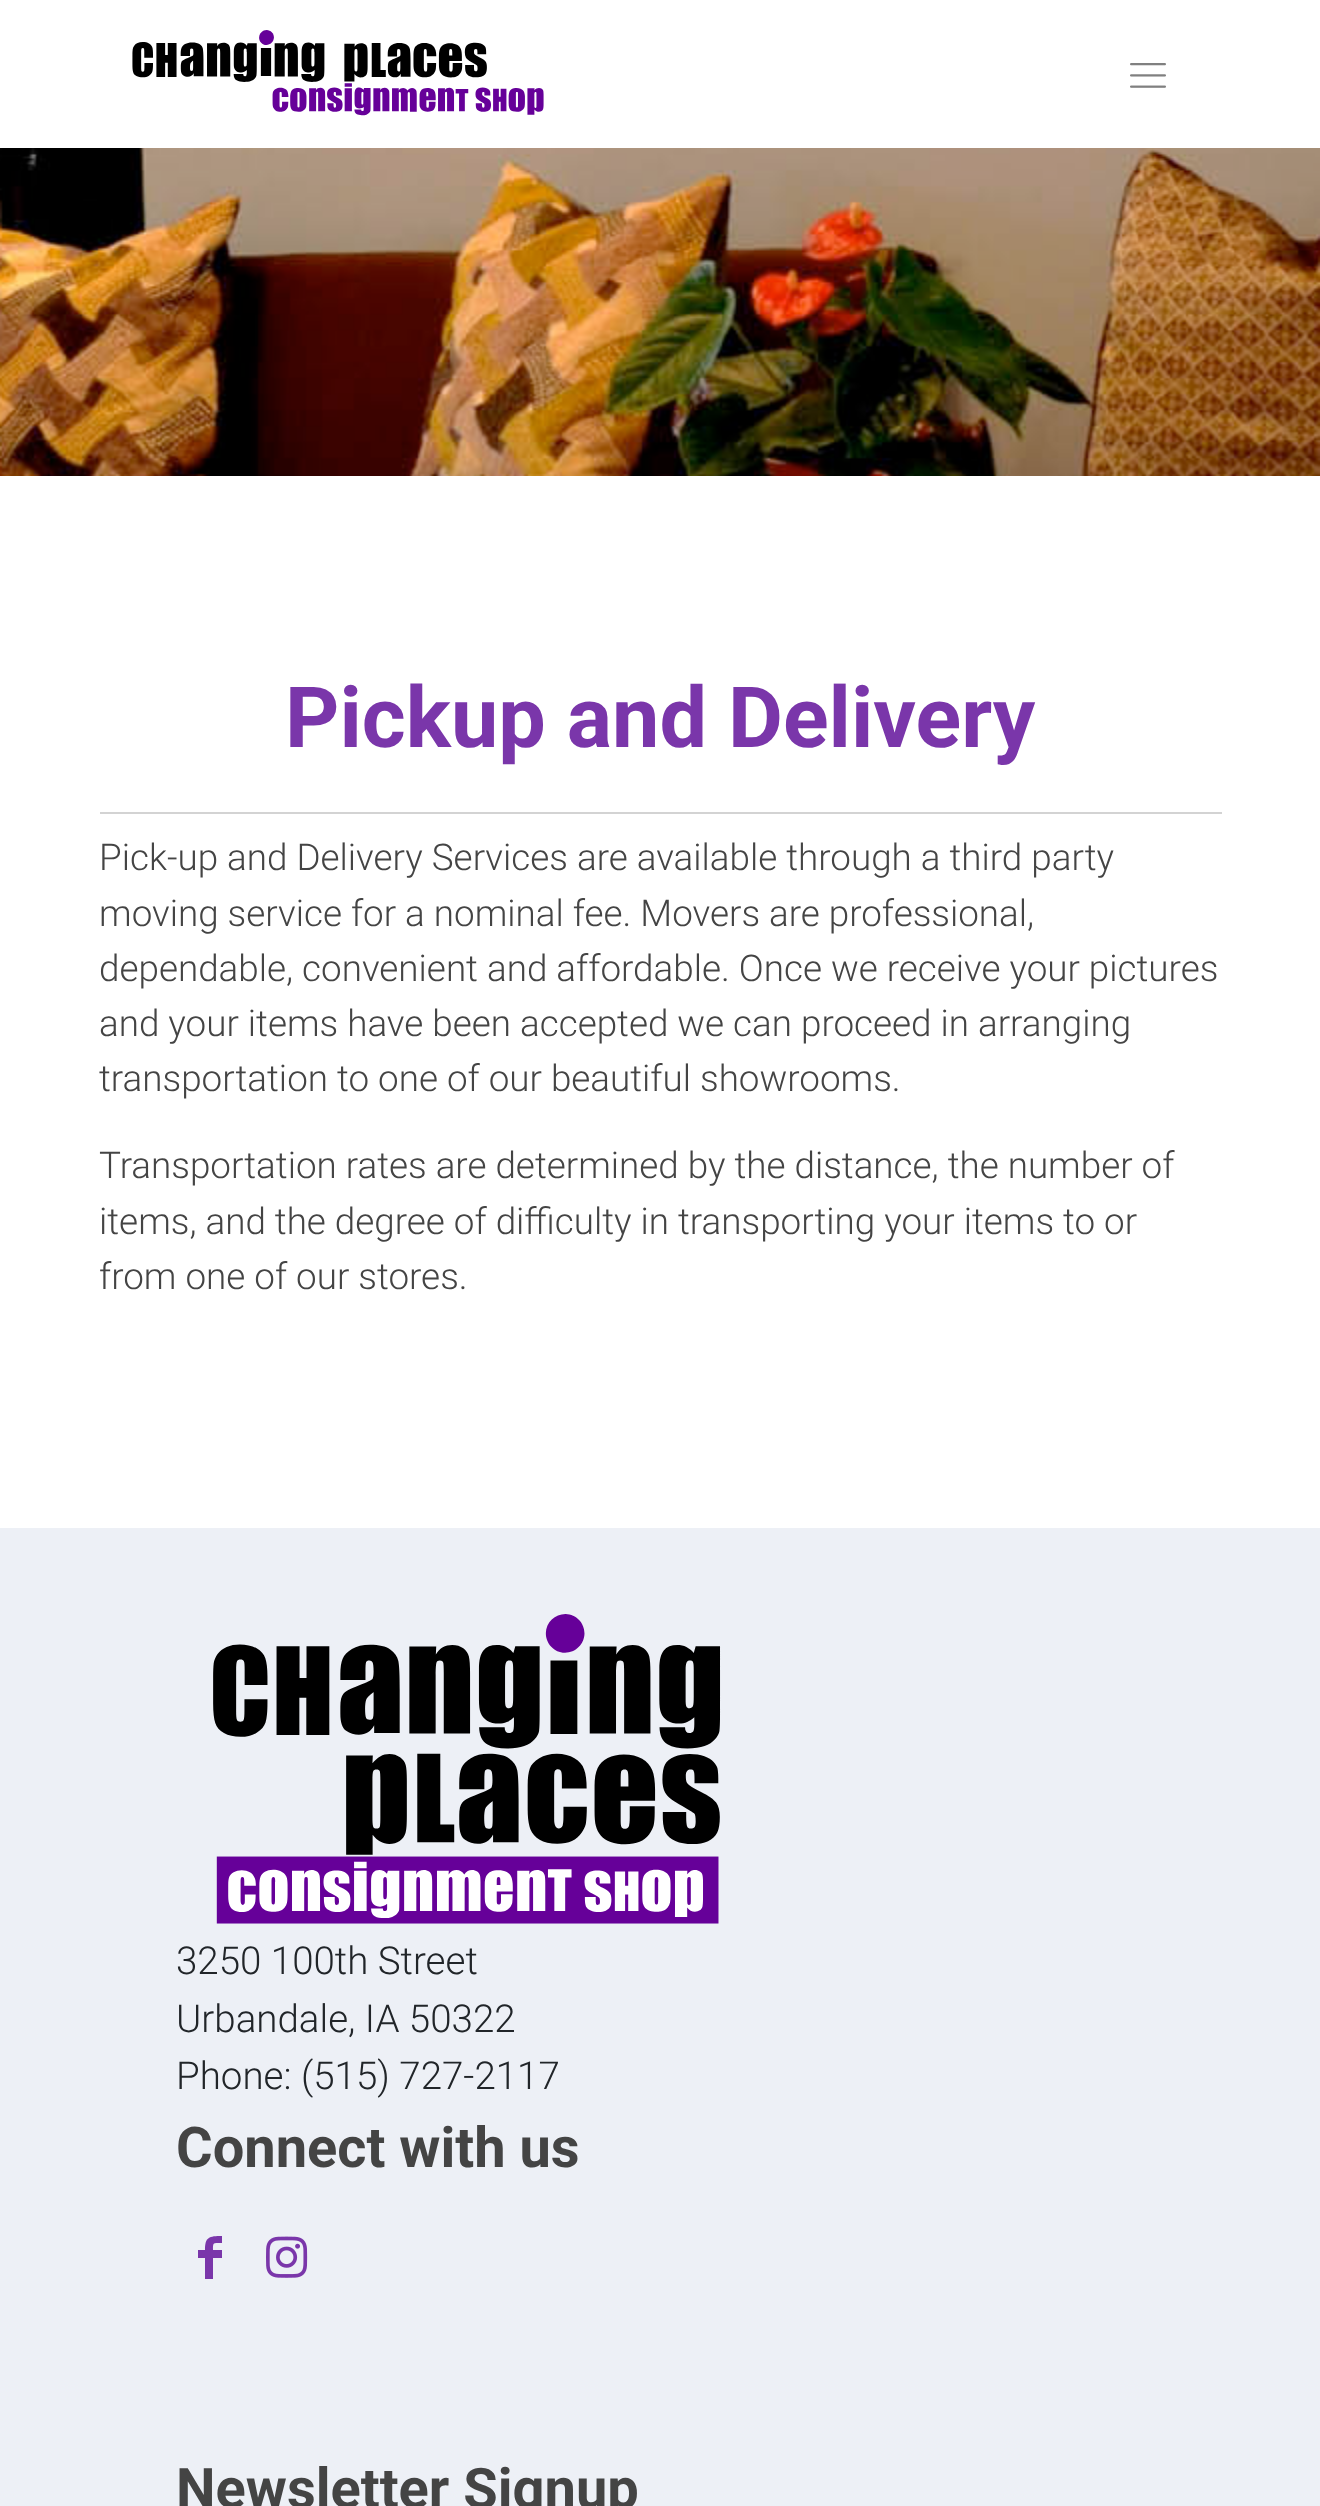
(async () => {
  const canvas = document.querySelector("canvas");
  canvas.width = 1320;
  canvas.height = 2506;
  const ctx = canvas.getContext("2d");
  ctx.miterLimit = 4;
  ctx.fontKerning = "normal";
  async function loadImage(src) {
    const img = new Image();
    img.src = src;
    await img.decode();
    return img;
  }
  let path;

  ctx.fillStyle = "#ffffff";
  ctx.fillRect(0, 0, 1320, 2506);
  ctx.drawImage(await loadImage("img/1.png"), 132, 30, 412, 86);
  ctx.drawImage(await loadImage("img/2.png"), 1130, 63, 36, 25);
  ctx.drawImage(await loadImage("img/3.png"), 0, 148, 1320, 328);
  ctx.fillStyle = "#d3d3d3";
  ctx.fillRect(100, 812, 1122, 2);
  ctx.fillStyle = "#edf0f6";
  ctx.fillRect(0, 1528, 1320, 978);
  ctx.drawImage(await loadImage("img/4.png"), 213, 1614, 508, 310);
  ctx.fillStyle = "#7a36aa";
  path = new Path2D("M222 2243C213 2243 213 2242 213 2250H222V2258H213V2279H205V2258H198V2250H205C205 2237 209 2236 222 2236Z");
  ctx.fill(path);
  ctx.drawImage(await loadImage("img/5.png"), 266, 2236, 42, 42);
  ctx.font = "bold 84.5px Roboto";
  ctx.fillText("Pickup and Delivery", 285, 747);
  ctx.font = "300 36.8px Roboto";
  ctx.fillStyle = "#444444";
  for (const [text, x, y] of [
    ["Pick-up and Delivery Services are available through a third party", 99, 870],
    ["moving service for a nominal fee. Movers are professional,", 99, 926],
    ["dependable, convenient and affordable. Once we receive your pictures", 99, 981],
    ["and your items have been accepted we can proceed in arranging", 99, 1036],
    ["transportation to one of our beautiful showrooms.", 99, 1091],
    ["Transportation rates are determined by the distance, the number of", 99, 1178],
    ["items, and the degree of difficulty in transporting your items to or", 99, 1234],
    ["from one of our stores.", 99, 1289],
  ]) {
    ctx.fillText(text, x, y);
  }
  ctx.font = "300 38.5px Roboto";
  ctx.fillStyle = "#212529";
  for (const [text, x, y] of [
    ["3250 100th Street", 176, 1974],
    ["Urbandale, IA 50322", 176, 2032],
    ["Phone: (515) 727-2117", 176, 2089],
  ]) {
    ctx.fillText(text, x, y);
  }
  ctx.font = "bold 56px Roboto";
  ctx.fillStyle = "#444444";
  ctx.fillText("Connect with us", 176, 2167);
  ctx.fillText("Newsletter Signup", 176, 2508);
})();
